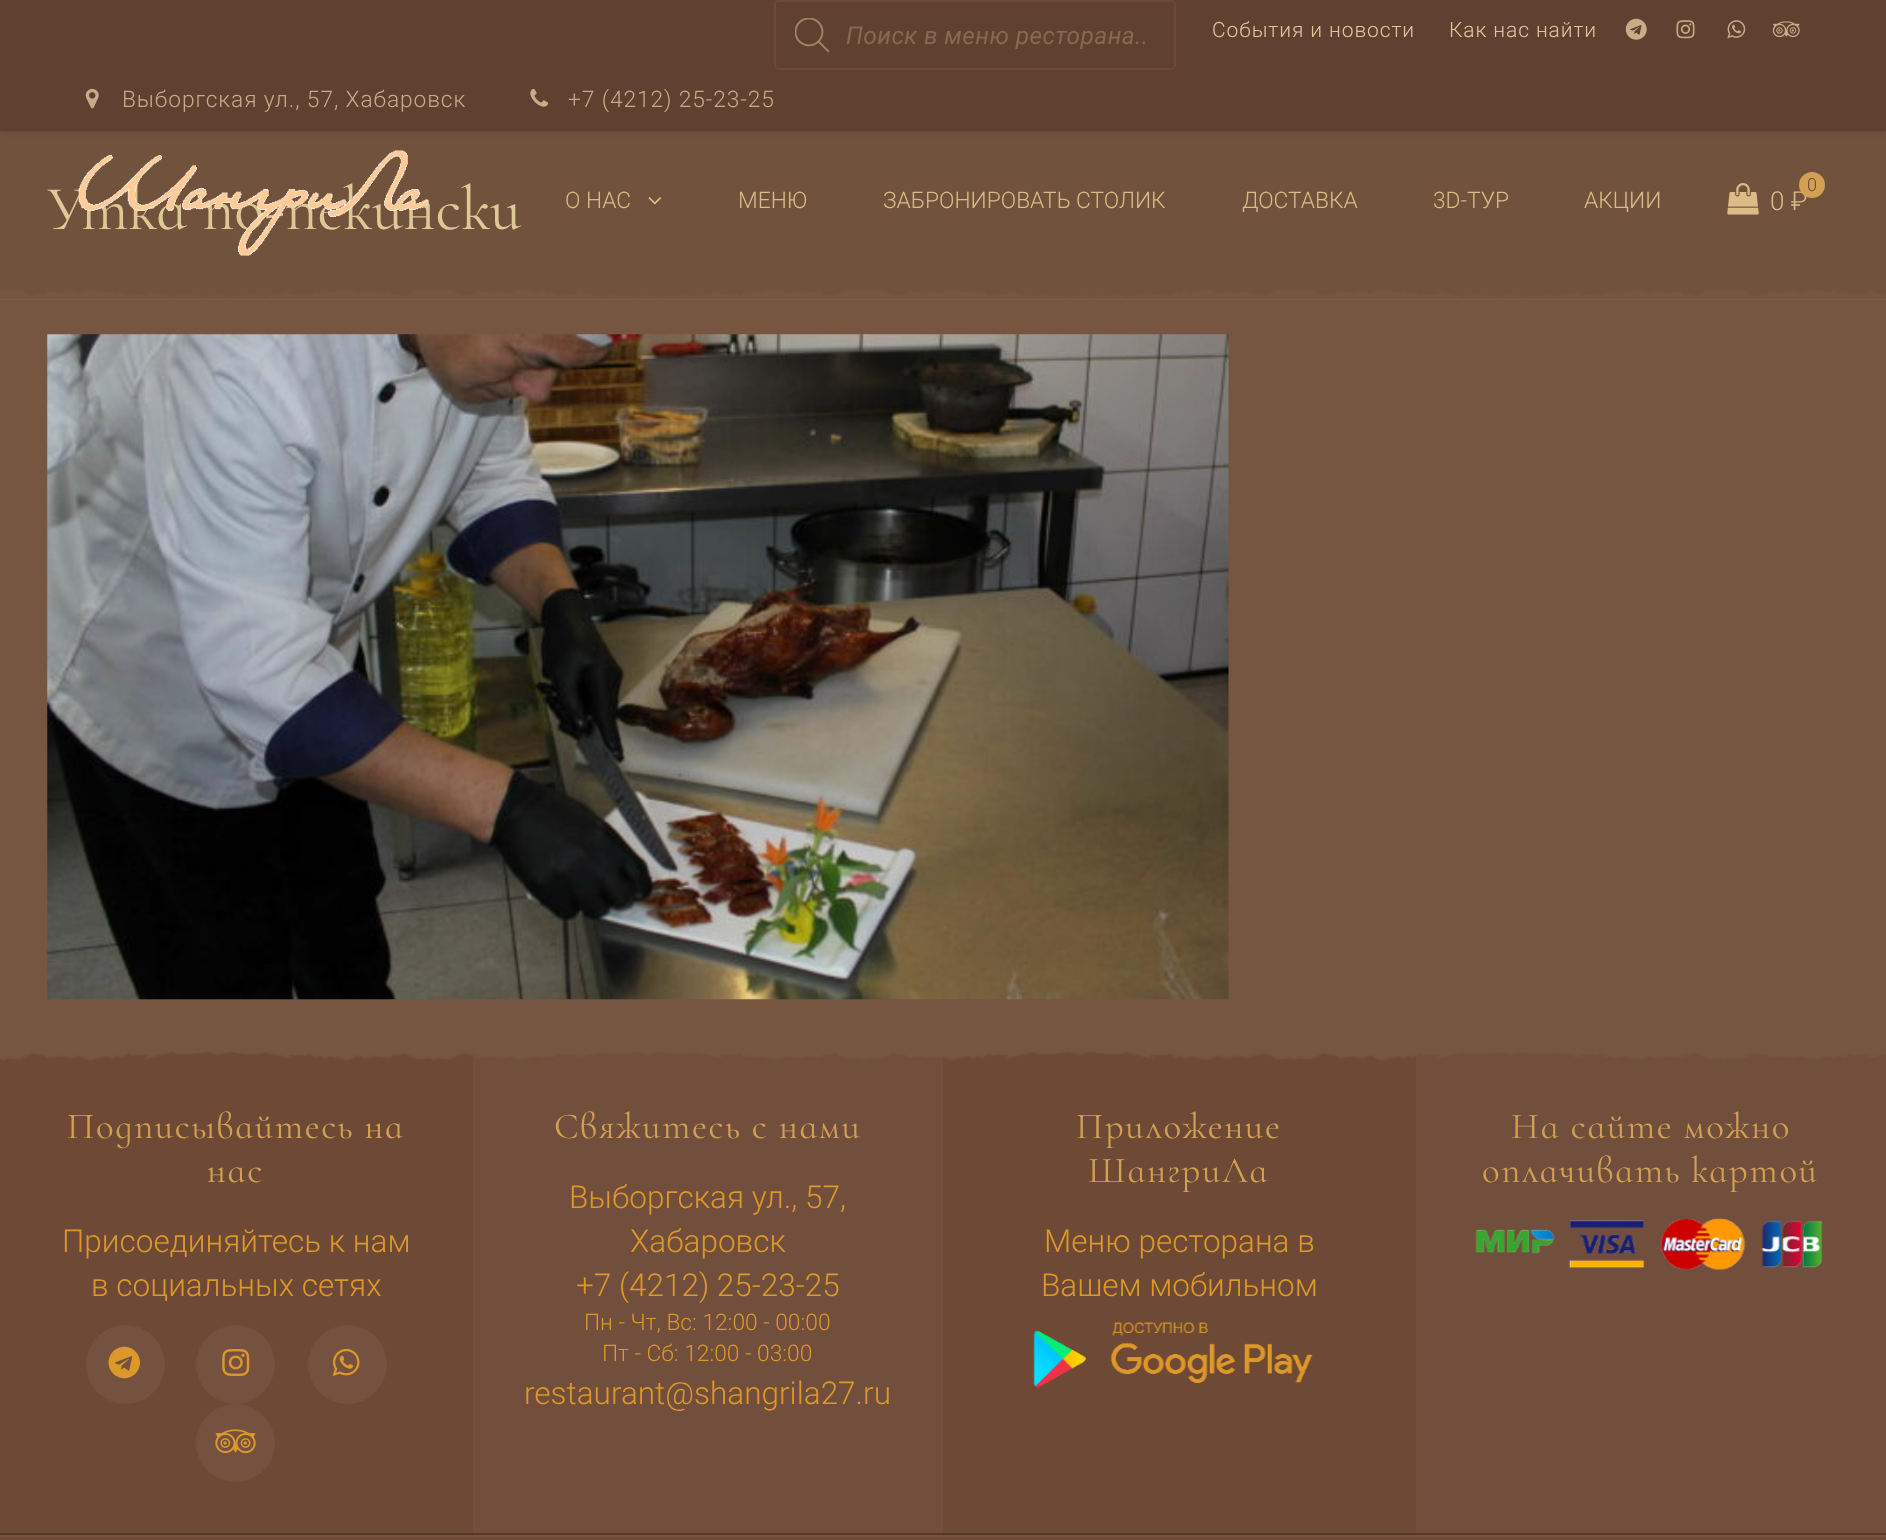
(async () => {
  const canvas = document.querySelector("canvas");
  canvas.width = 1886;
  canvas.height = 1540;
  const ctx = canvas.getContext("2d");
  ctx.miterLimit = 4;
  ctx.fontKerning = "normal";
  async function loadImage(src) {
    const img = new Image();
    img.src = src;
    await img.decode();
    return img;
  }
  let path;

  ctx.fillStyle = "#765640";
  ctx.fillRect(0, 0, 1886, 1540);
  ctx.fillStyle = "#775c49";
  ctx.fillRect(0, 299, 1886, 1);
  ctx.fillStyle = "#71523d";
  ctx.fillRect(0, 131, 1886, 167);
  ctx.fillStyle = "rgba(0, 0, 0, 0.1)";
  ctx.filter = "blur(2.5px)";
  ctx.beginPath();
  ctx.rect(0, 2, 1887, 131);
  ctx.fill();
  ctx.filter = "none";
  ctx.fillStyle = "#604030";
  ctx.fillRect(0, 0, 1886, 131);
  ctx.beginPath();
  ctx.roundRect(775, 1, 400, 68, 4);
  ctx.strokeStyle = "#6d4936";
  ctx.lineWidth = 2;
  ctx.stroke();
  ctx.drawImage(await loadImage("img/1.png"), 795, 18, 35, 35);
  ctx.drawImage(await loadImage("img/2.png"), 1625, 18, 22, 22);
  ctx.drawImage(await loadImage("img/3.png"), 1676, 20, 19, 19);
  ctx.drawImage(await loadImage("img/4.png"), 1727, 20, 19, 19);
  ctx.drawImage(await loadImage("img/5.png"), 1772, 21, 28, 17);
  ctx.drawImage(await loadImage("img/6.png"), 85, 88, 14, 21);
  ctx.drawImage(await loadImage("img/7.png"), 530, 88, 19, 19);
  ctx.drawImage(await loadImage("img/9.png"), 648, 197, 13, 8);
  ctx.drawImage(await loadImage("img/10.png"), 1727, 183, 32, 32);
  ctx.drawImage(await loadImage("img/11.png"), 0, 290, 1886, 9);
  ctx.drawImage(await loadImage("img/12.png"), 47, 334, 1182, 666);
  for (const [x, y, w, h, color] of [
    [0, 1052, 1886, 488, "#6e4936"],
    [473, 1052, 470, 483, "#724e3c"],
    [1416, 1052, 470, 483, "#724e3c"],
  ]) {
    ctx.fillStyle = color;
    ctx.fillRect(x, y, w, h);
  }
  ctx.drawImage(await loadImage("img/13.png"), 0, 1052, 1886, 9);
  ctx.fillStyle = "#755240";
  ctx.beginPath();
  ctx.arc(125.5, 1364.5, 39.5, 0, Math.PI * 2);
  ctx.fill();
  ctx.drawImage(await loadImage("img/14.png"), 108, 1346, 32, 33);
  ctx.beginPath();
  ctx.arc(235.5, 1364.5, 39.5, 0, Math.PI * 2);
  ctx.fill();
  ctx.drawImage(await loadImage("img/15.png"), 222, 1349, 28, 27);
  ctx.beginPath();
  ctx.arc(347.5, 1364.5, 39.5, 0, Math.PI * 2);
  ctx.fill();
  ctx.drawImage(await loadImage("img/16.png"), 332, 1348, 28, 28);
  ctx.beginPath();
  ctx.roundRect(196, 1404, 79, 78, 39);
  ctx.fill();
  ctx.drawImage(await loadImage("img/17.png"), 215, 1429, 41, 25);
  ctx.drawImage(await loadImage("img/18.png"), 1033, 1322, 280, 66);
  ctx.drawImage(await loadImage("img/19.png"), 1475, 1218, 348, 53);
  ctx.fillStyle = "rgba(0, 0, 0, 0.24)";
  path = new Path2D("M0 1533V1535H1886V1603H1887V1533Z");
  ctx.fill(path);
  ctx.fillStyle = "#755240";
  ctx.fillRect(0, 1535, 1886, 2);
  ctx.letterSpacing = "0.4px";
  ctx.font = "italic 24.5px Roboto";
  ctx.fillStyle = "#866951";
  ctx.fillText("Поиск в меню ресторана..", 846, 44);
  ctx.letterSpacing = "0.9px";
  ctx.font = "300 21px Roboto";
  ctx.fillStyle = "#ddc89e";
  ctx.fillText("События и новости", 1212, 37);
  ctx.fillText("Как нас найти", 1449, 37);
  ctx.font = "300 22.75px Roboto";
  ctx.fillStyle = "#c4ad88";
  ctx.fillText("Выборгская ул., 57, Хабаровск", 122, 107);
  ctx.fillText("+7 (4212) 25-23-25", 568, 107);
  ctx.letterSpacing = "0px";
  ctx.fillStyle = "#ddbb87";
  for (const [text, x, y] of [
    ["О НАС", 565, 208],
    ["МЕНЮ", 738, 208],
    ["ЗАБРОНИРОВАТЬ СТОЛИК", 883, 208],
    ["ДОСТАВКА", 1242, 208],
    ["3D-ТУР", 1433, 208],
    ["АКЦИИ", 1584, 208],
  ]) {
    ctx.fillText(text, x, y);
  }
  ctx.font = "300 26px Roboto";
  ctx.fillText("0 ₽", 1770, 210);
  ctx.fillStyle = "#d1a054";
  ctx.beginPath();
  ctx.arc(1812, 185, 13, 0, Math.PI * 2);
  ctx.fill();
  ctx.font = "300 18px Roboto";
  ctx.fillStyle = "#6d4936";
  ctx.fillText("0", 1807, 191);
  ctx.font = "300 63px Cormorant Infant";
  ctx.fillStyle = "#ddc896";
  ctx.fillText("Утка по-пекински", 47, 229);
  ctx.drawImage(await loadImage("img/8.png"), 78, 150, 351, 106);
  ctx.letterSpacing = "1.75px";
  ctx.font = "300 36.75px Cormorant Infant";
  ctx.fillStyle = "#d1a054";
  ctx.fillText("Подписывайтесь на", 67, 1138);
  ctx.fillText("нас", 207, 1182);
  ctx.letterSpacing = "0px";
  ctx.font = "300 31.5px Roboto";
  ctx.fillStyle = "#dd982a";
  ctx.fillText("Присоединяйтесь к нам", 62, 1252);
  ctx.fillText("в социальных сетях", 91, 1296);
  ctx.letterSpacing = "1.75px";
  ctx.font = "300 36.75px Cormorant Infant";
  ctx.fillStyle = "#d1a054";
  ctx.fillText("Свяжитесь с нами", 554, 1138);
  ctx.letterSpacing = "0px";
  ctx.font = "300 31.5px Roboto";
  ctx.fillStyle = "#dd982a";
  for (const [text, x, y] of [
    ["Выборгская ул., 57,", 569, 1208],
    ["Хабаровск", 630, 1252],
    ["+7 (4212) 25-23-25", 576, 1296],
  ]) {
    ctx.fillText(text, x, y);
  }
  ctx.font = "300 22.75px Roboto";
  ctx.fillText("Пн - Чт, Вс: 12:00 - 00:00", 584, 1330);
  ctx.fillText("Пт - Сб: 12:00 - 03:00", 602, 1361);
  ctx.font = "300 31.5px Roboto";
  ctx.fillText("restaurant@shangrila27.ru", 524, 1404);
  ctx.letterSpacing = "1.75px";
  ctx.font = "300 36.75px Cormorant Infant";
  ctx.fillStyle = "#d1a054";
  ctx.fillText("Приложение", 1076, 1138);
  ctx.fillText("ШангриЛа", 1088, 1182);
  ctx.letterSpacing = "0px";
  ctx.font = "300 31.5px Roboto";
  ctx.fillStyle = "#dd982a";
  ctx.fillText("Меню ресторана в", 1044, 1252);
  ctx.fillText("Вашем мобильном", 1041, 1296);
  ctx.letterSpacing = "1.75px";
  ctx.font = "300 36.75px Cormorant Infant";
  ctx.fillStyle = "#d1a054";
  ctx.fillText("На сайте можно", 1511, 1138);
  ctx.fillText("оплачивать картой", 1482, 1182);
})();
